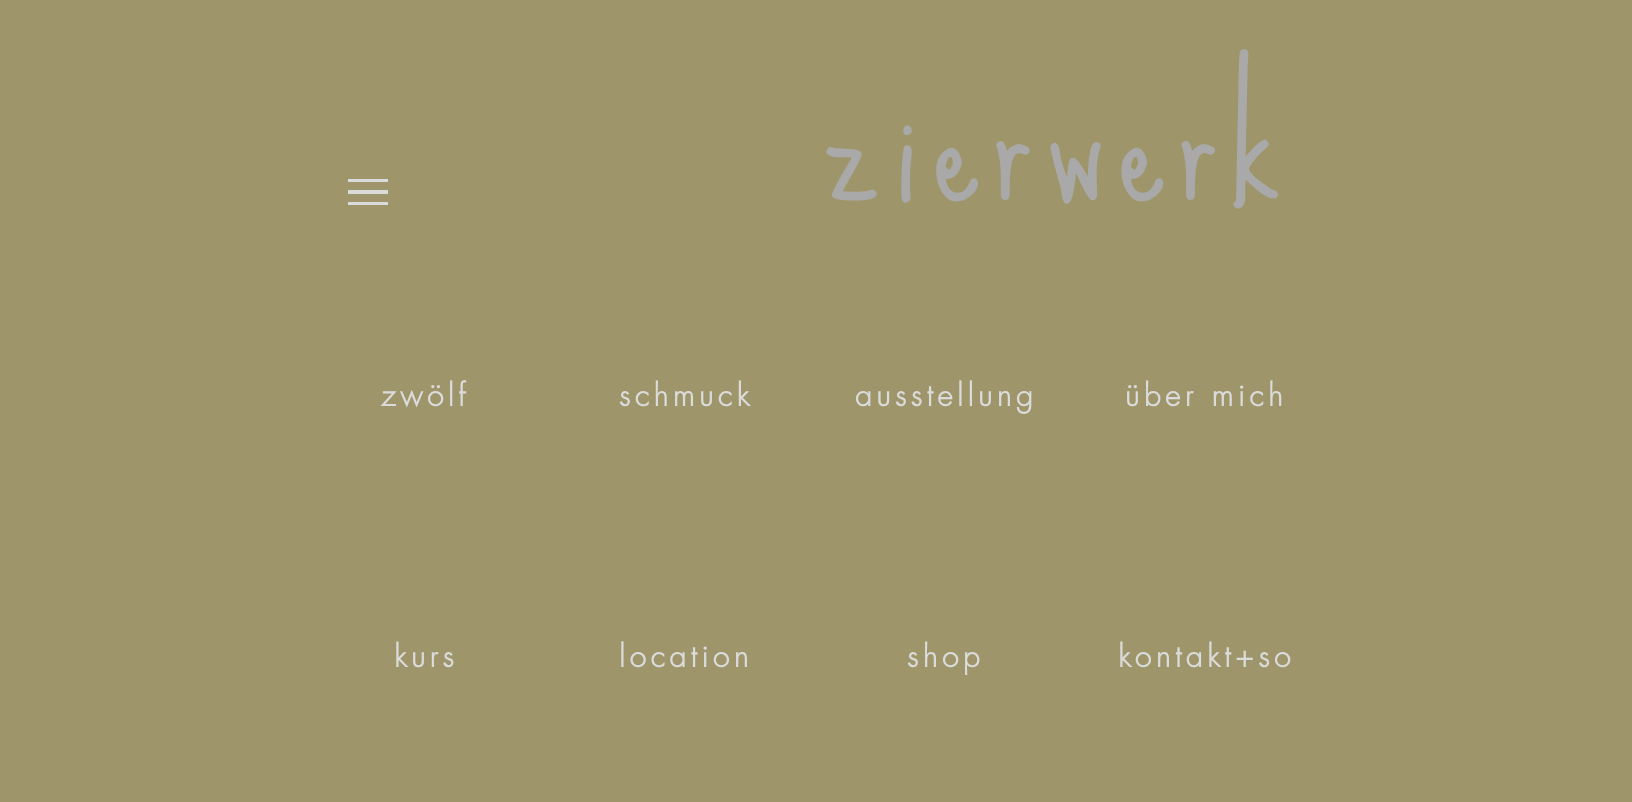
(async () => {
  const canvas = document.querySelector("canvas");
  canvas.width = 1632;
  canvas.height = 802;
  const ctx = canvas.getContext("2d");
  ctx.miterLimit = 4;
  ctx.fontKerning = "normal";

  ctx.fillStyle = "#9e966a";
  ctx.fillRect(0, 0, 1632, 802);
  for (const [x, y, w, h, color] of [
    [348, 202, 40, 3, "#dbdbdb"],
    [348, 179, 40, 3, "#dbdbdb"],
    [348, 190, 40, 4, "#dbdbdb"],
  ]) {
    ctx.fillStyle = color;
    ctx.fillRect(x, y, w, h);
  }
  ctx.letterSpacing = "15px";
  ctx.font = "150px Sue Ellen Francisco";
  ctx.fillStyle = "#a9a9a9";
  ctx.fillText("zierwerk", 824, 200);
  ctx.letterSpacing = "4.5px";
  ctx.font = "bold 30px futura";
  ctx.fillStyle = "#dbdbdb";
  for (const [text, x, y] of [
    ["zwölf", 381, 406],
    ["schmuck", 619, 406],
    ["ausstellung", 855, 406],
    ["über mich", 1125, 406],
    ["kurs", 394, 667],
    ["location", 619, 667],
    ["shop", 907, 667],
    ["kontakt+so", 1118, 667],
  ]) {
    ctx.fillText(text, x, y);
  }
})();
